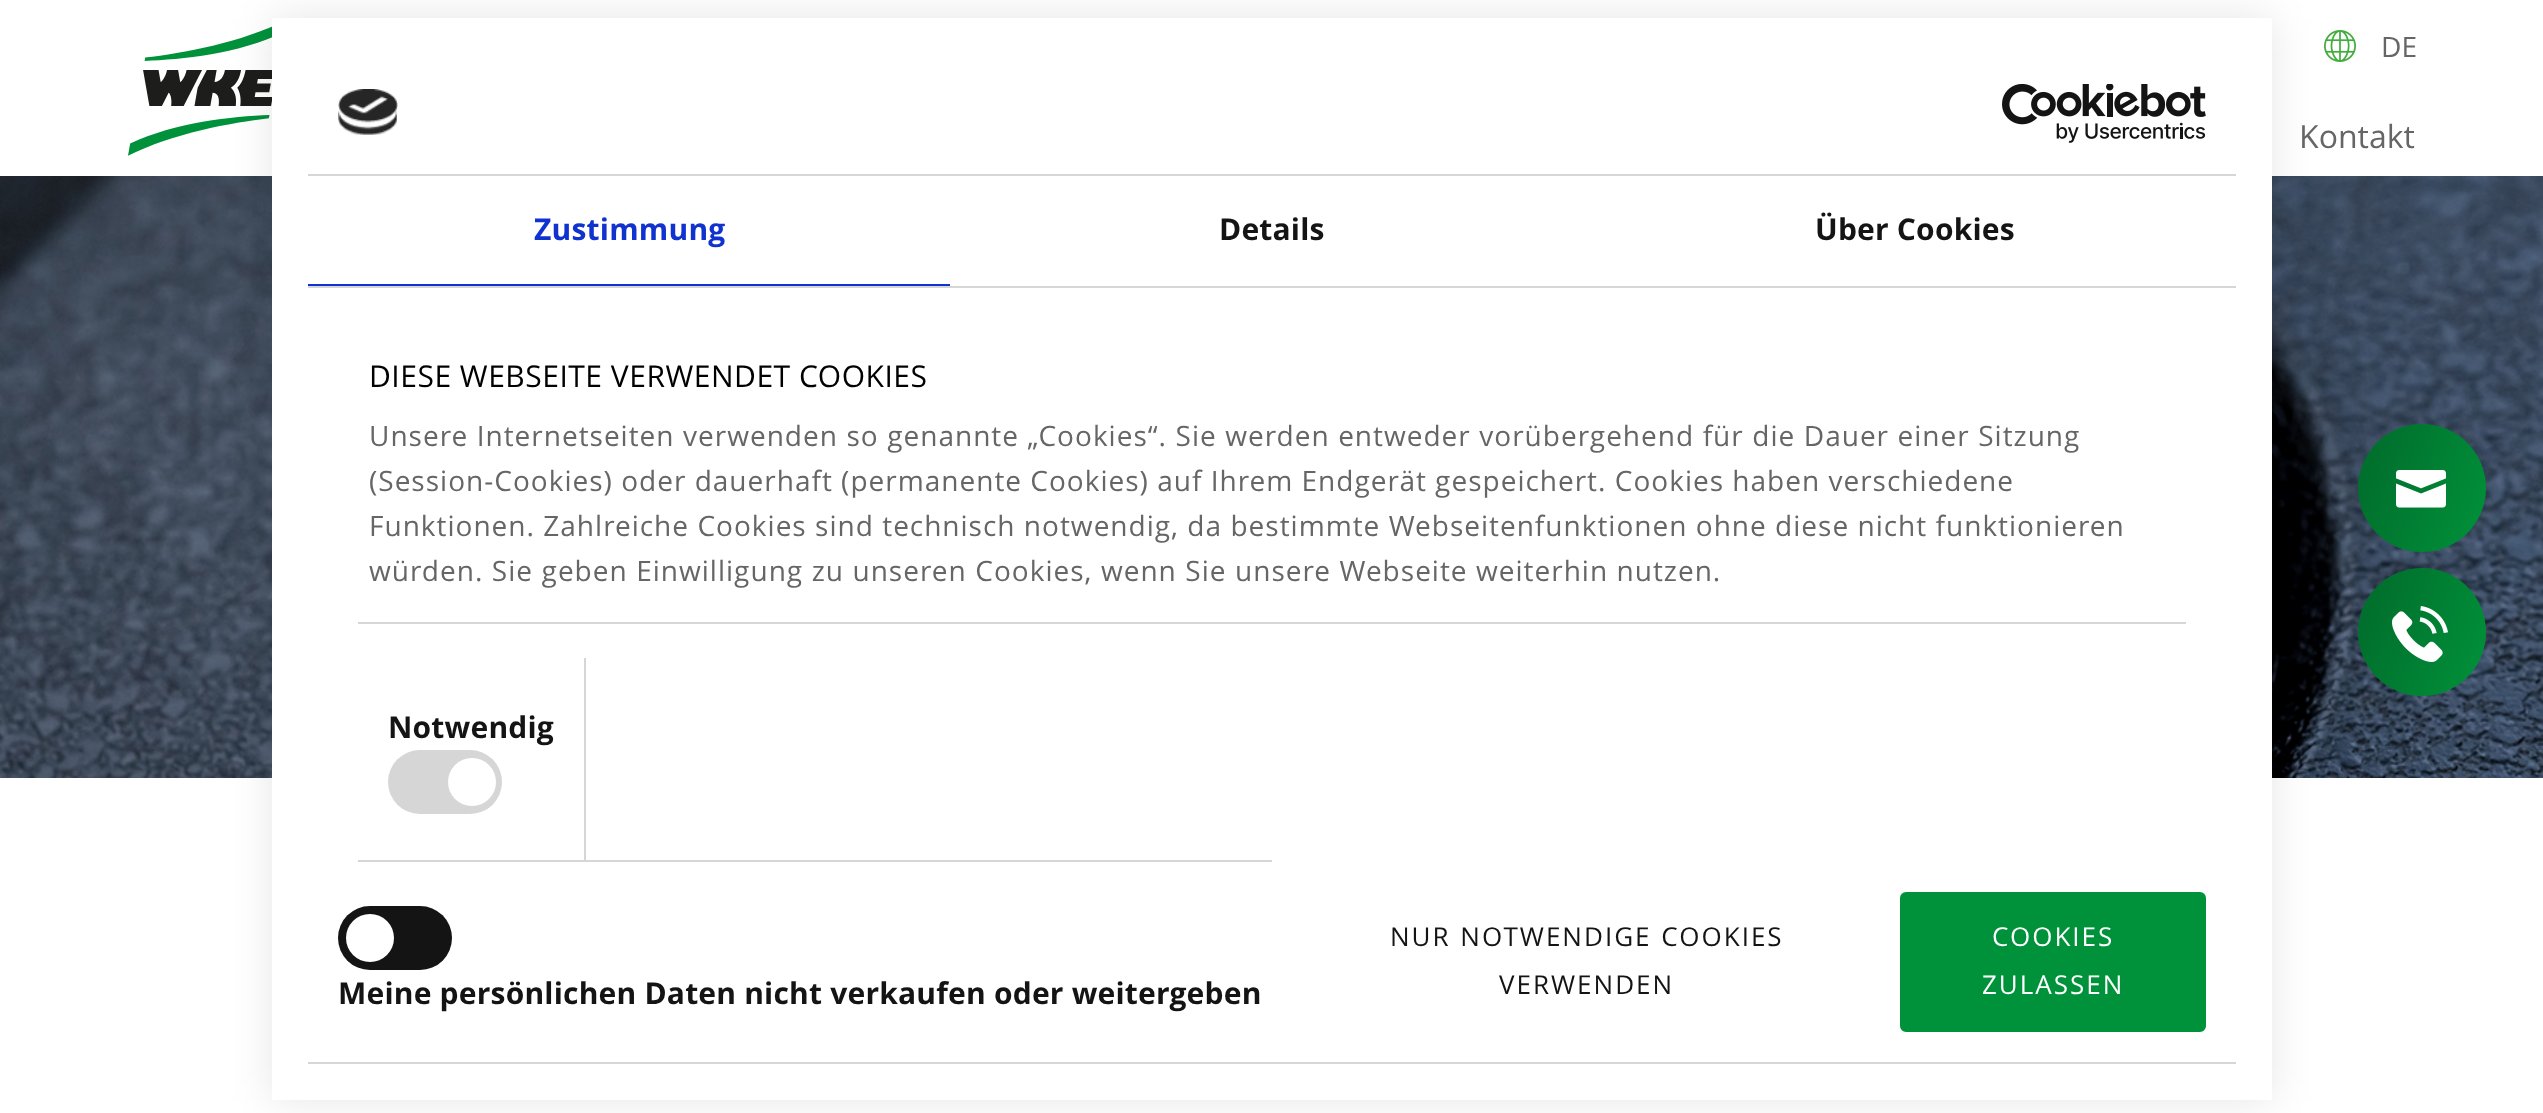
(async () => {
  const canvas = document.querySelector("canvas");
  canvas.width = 2543;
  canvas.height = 1113;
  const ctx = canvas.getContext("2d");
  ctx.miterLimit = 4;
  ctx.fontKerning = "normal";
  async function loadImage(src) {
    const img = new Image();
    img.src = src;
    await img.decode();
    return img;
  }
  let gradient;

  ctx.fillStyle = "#ffffff";
  ctx.fillRect(0, 0, 2543, 1113);
  ctx.drawImage(await loadImage("img/1.png"), 128, 26, 144, 130);
  ctx.drawImage(await loadImage("img/2.png"), 2324, 30, 32, 32);
  ctx.drawImage(await loadImage("img/3.png"), 0, 176, 2543, 602);
  ctx.fillStyle = "rgba(0, 0, 0, 0.1)";
  ctx.filter = "blur(20px)";
  ctx.beginPath();
  ctx.rect(272, 18, 2000, 1082);
  ctx.fill();
  ctx.filter = "none";
  ctx.fillStyle = "#ffffff";
  ctx.fillRect(272, 18, 2000, 1082);
  ctx.fillStyle = "#d6d6d6";
  ctx.fillRect(308, 174, 1928, 2);
  ctx.drawImage(await loadImage("img/4.png"), 338, 89, 60, 46);
  ctx.drawImage(await loadImage("img/5.png"), 2002, 84, 204, 59);
  for (const [x, y, w, h, color] of [
    [308, 286, 1928, 2, "#d6d6d6"],
    [308, 284, 642, 2, "#1032cf"],
    [358, 622, 1828, 2, "#d6d6d6"],
    [358, 860, 914, 2, "#d6d6d6"],
    [584, 658, 2, 202, "#d6d6d6"],
  ]) {
    ctx.fillStyle = color;
    ctx.fillRect(x, y, w, h);
  }
  ctx.beginPath();
  ctx.roundRect(388, 750, 114, 64, 32);
  ctx.fill();
  ctx.fillStyle = "#ffffff";
  ctx.beginPath();
  ctx.arc(472, 782, 24, 0, Math.PI * 2);
  ctx.fill();
  ctx.fillStyle = "#d6d6d6";
  ctx.fillRect(308, 1062, 1928, 2);
  ctx.fillStyle = "#141414";
  ctx.beginPath();
  ctx.roundRect(338, 906, 114, 64, 32);
  ctx.fill();
  ctx.fillStyle = "#ffffff";
  ctx.beginPath();
  ctx.arc(370, 938, 24, 0, Math.PI * 2);
  ctx.fill();
  ctx.fillStyle = "#00923a";
  ctx.beginPath();
  ctx.roundRect(1901, 893, 304, 138, 5);
  ctx.fill();
  ctx.strokeStyle = "#00923a";
  ctx.lineWidth = 2;
  ctx.stroke();
  gradient = ctx.createLinearGradient(2345, 460, 2499, 516);
  gradient.addColorStop(0, "#016a2b");
  gradient.addColorStop(1, "#00923a");
  ctx.fillStyle = gradient;
  ctx.beginPath();
  ctx.arc(2422, 488, 64, 0, Math.PI * 2);
  ctx.fill();
  ctx.drawImage(await loadImage("img/6.png"), 2396, 470, 50, 38);
  gradient = ctx.createLinearGradient(2345, 604, 2499, 660);
  gradient.addColorStop(0, "#016a2b");
  gradient.addColorStop(1, "#00923a");
  ctx.fillStyle = gradient;
  ctx.beginPath();
  ctx.arc(2422, 632, 64, 0, Math.PI * 2);
  ctx.fill();
  ctx.drawImage(await loadImage("img/7.png"), 2392, 606, 56, 56);
  ctx.font = "28px Open Sans";
  ctx.fillStyle = "#666666";
  ctx.fillText("DE", 2381, 57);
  ctx.font = "32px Open Sans";
  ctx.fillText("Kontakt", 2299, 148);
  ctx.letterSpacing = "0.2px";
  ctx.font = "bold 30px Open Sans";
  ctx.fillStyle = "#1032cf";
  ctx.fillText("Zustimmung", 534, 240);
  ctx.fillStyle = "#141414";
  ctx.fillText("Details", 1219, 240);
  ctx.fillText("Über Cookies", 1815, 240);
  ctx.letterSpacing = "0.5px";
  ctx.font = "30px Open Sans";
  ctx.fillStyle = "#000000";
  ctx.fillText("DIESE WEBSEITE VERWENDET COOKIES", 369, 387);
  ctx.letterSpacing = "1px";
  ctx.wordSpacing = "0.25px";
  ctx.font = "28px Open Sans";
  ctx.fillStyle = "#666666";
  ctx.fillText("Unsere Internetseiten verwenden so genannte „Cookies“. Sie werden entweder vorübergehend für die Dauer einer Sitzung", 369, 446);
  ctx.wordSpacing = "0px";
  ctx.fillText("(Session-Cookies) oder dauerhaft (permanente Cookies) auf Ihrem Endgerät gespeichert. Cookies haben verschiedene", 369, 491);
  ctx.wordSpacing = "0.1px";
  ctx.fillText("Funktionen. Zahlreiche Cookies sind technisch notwendig, da bestimmte Webseitenfunktionen ohne diese nicht funktionieren", 369, 536);
  ctx.wordSpacing = "0.25px";
  ctx.fillText("würden. Sie geben Einwilligung zu unseren Cookies, wenn Sie unsere Webseite weiterhin nutzen.", 369, 581);
  ctx.letterSpacing = "0.2px";
  ctx.wordSpacing = "0px";
  ctx.font = "bold 30px Open Sans";
  ctx.fillStyle = "#141414";
  ctx.fillText("Notwendig", 388, 738);
  ctx.fillText("Meine persönlichen Daten nicht verkaufen oder weitergeben", 338, 1004);
  ctx.letterSpacing = "2px";
  ctx.wordSpacing = "1px";
  ctx.font = "26px Open Sans";
  ctx.fillText("NUR NOTWENDIGE COOKIES", 1390, 946);
  ctx.wordSpacing = "0px";
  ctx.fillText("VERWENDEN", 1499, 994);
  ctx.fillStyle = "#ffffff";
  ctx.fillText("COOKIES", 1992, 946);
  ctx.fillText("ZULASSEN", 1982, 994);
})();
